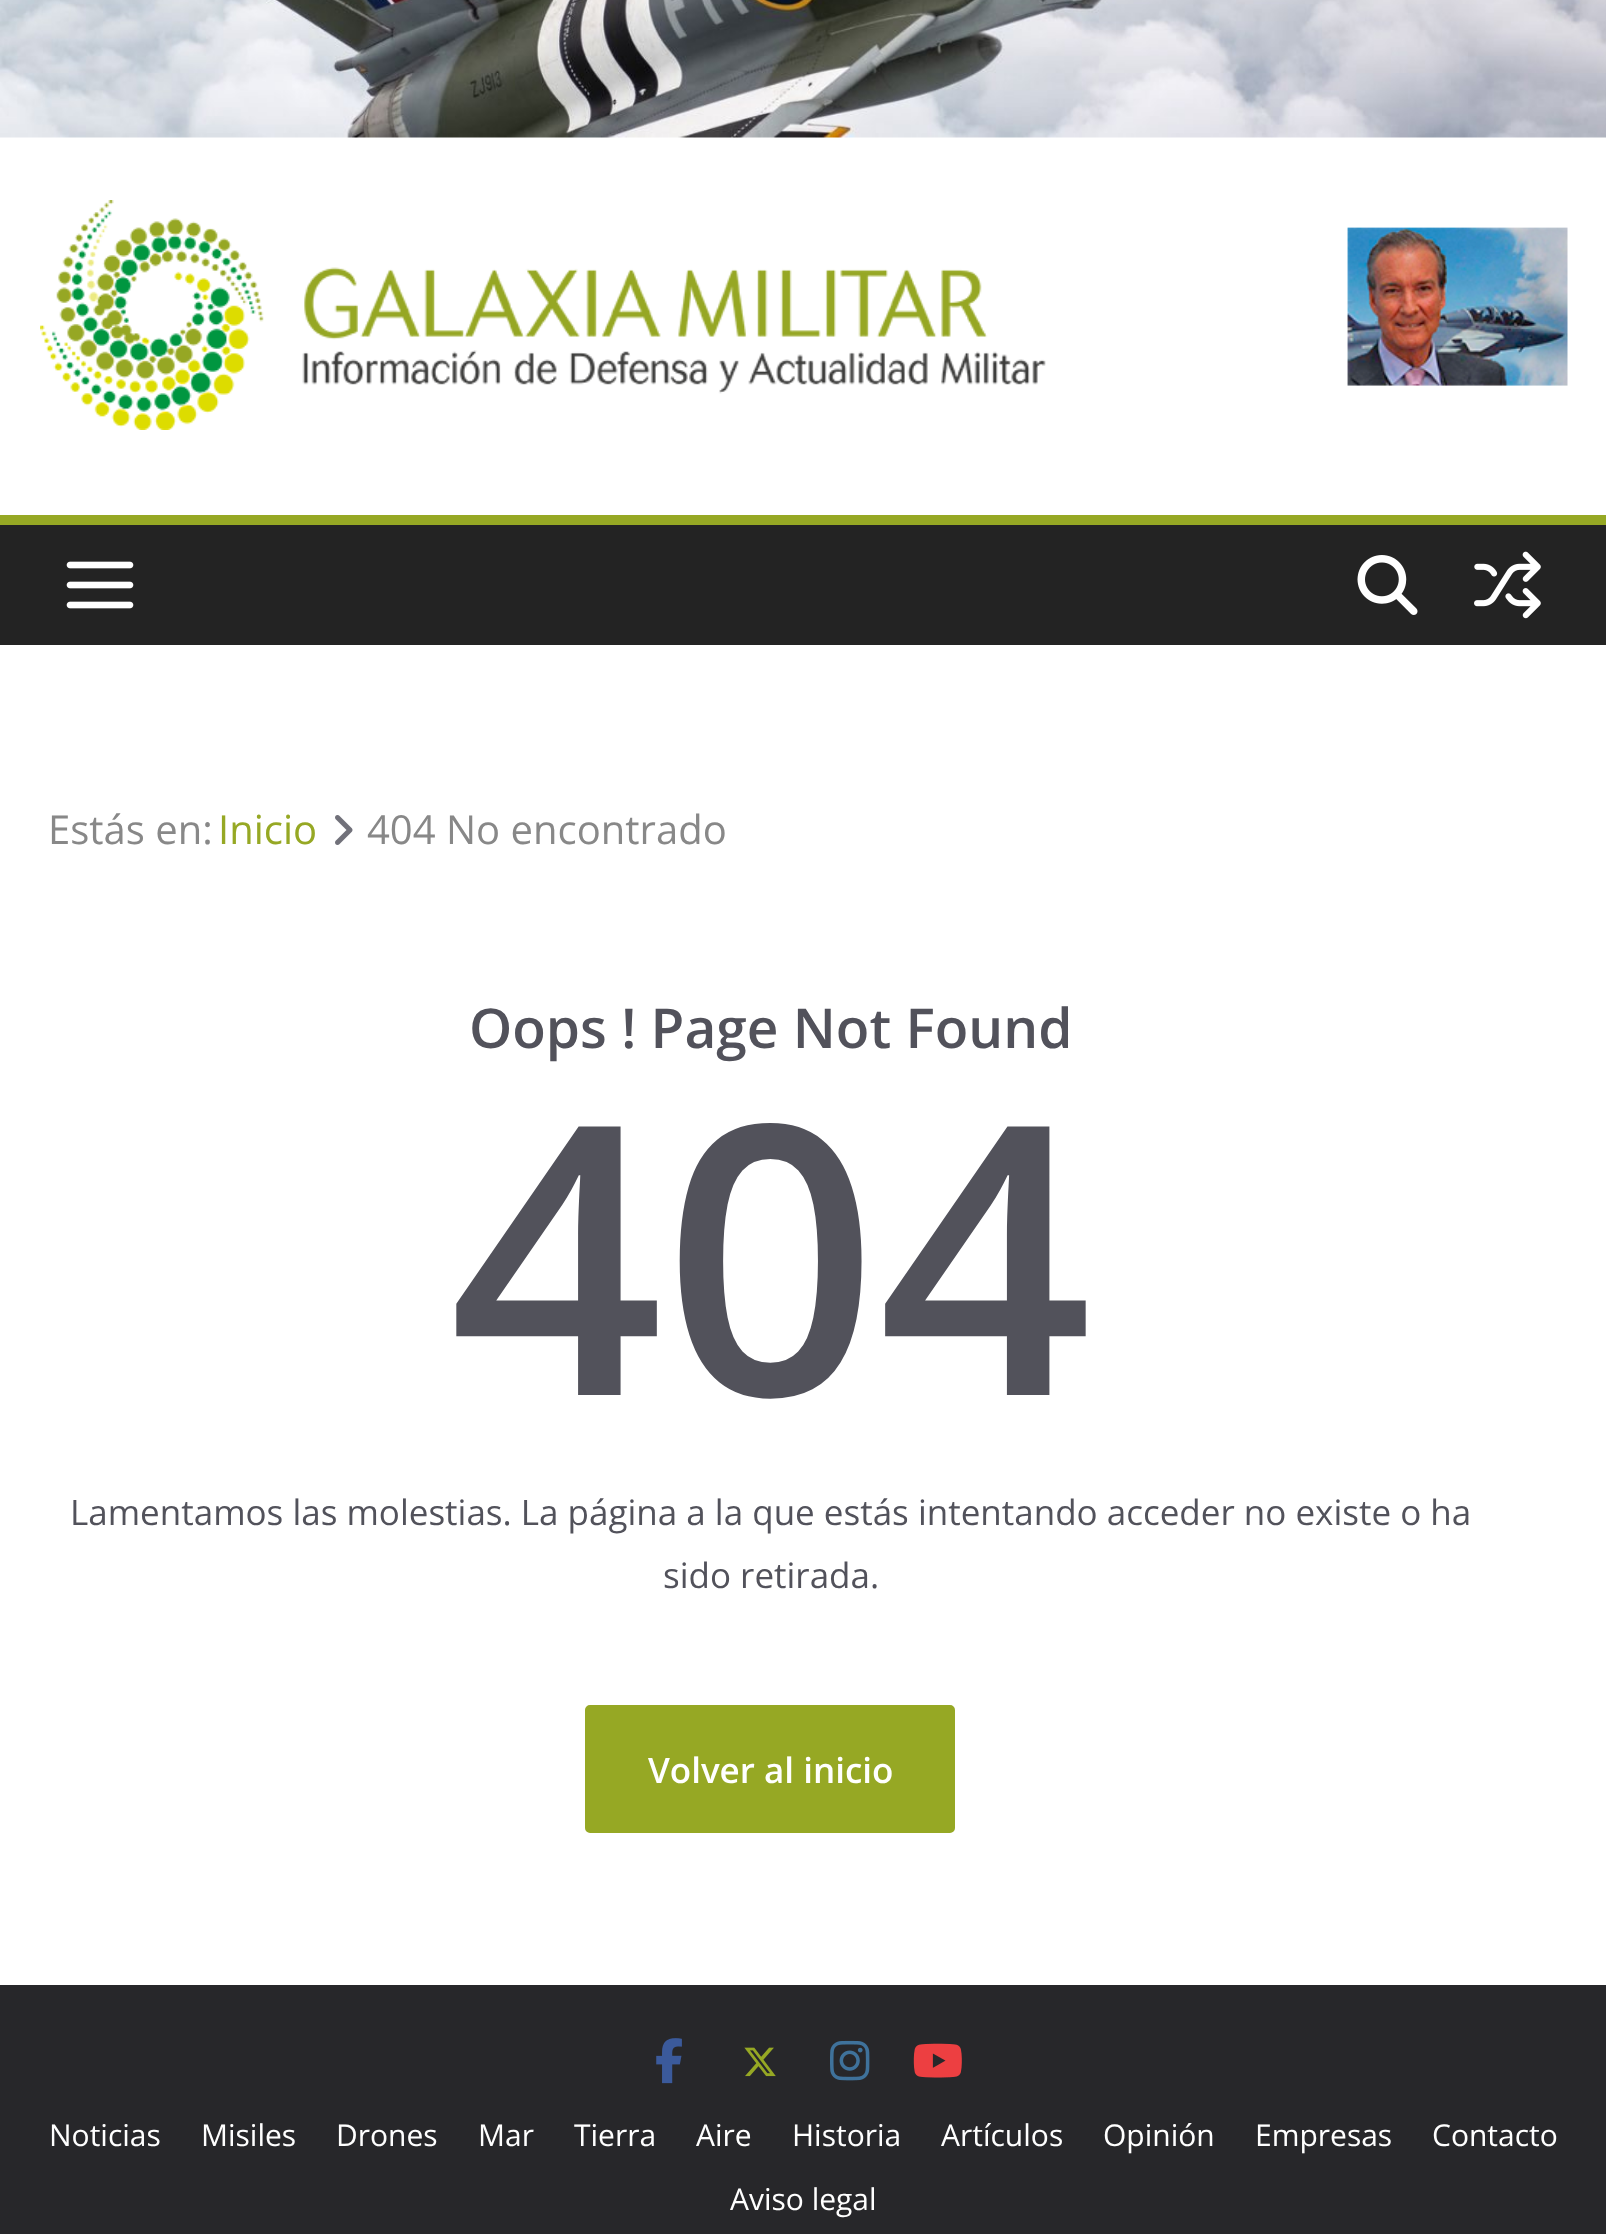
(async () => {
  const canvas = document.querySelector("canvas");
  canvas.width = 1606;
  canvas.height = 2234;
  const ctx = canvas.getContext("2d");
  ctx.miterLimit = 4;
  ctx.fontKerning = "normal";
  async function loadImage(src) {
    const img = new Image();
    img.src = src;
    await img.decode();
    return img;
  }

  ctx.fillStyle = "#ffffff";
  ctx.fillRect(0, 0, 1606, 2234);
  ctx.drawImage(await loadImage("img/1.png"), 0, 0, 1606, 138);
  ctx.drawImage(await loadImage("img/2.png"), 40, 200, 1528, 230);
  ctx.fillStyle = "#232323";
  ctx.fillRect(0, 525, 1606, 120);
  ctx.fillStyle = "#96a824";
  ctx.fillRect(0, 515, 1606, 10);
  ctx.drawImage(await loadImage("img/3.png"), 66, 561, 68, 48);
  ctx.drawImage(await loadImage("img/4.png"), 1357, 555, 61, 60);
  ctx.drawImage(await loadImage("img/5.png"), 1474, 551, 67, 68);
  ctx.drawImage(await loadImage("img/6.png"), 335, 815, 18, 30);
  ctx.beginPath();
  ctx.roundRect(586.5, 1706.5, 367, 125, 3.5);
  ctx.fill();
  ctx.strokeStyle = "#96a824";
  ctx.lineWidth = 3;
  ctx.stroke();
  ctx.fillStyle = "#27272a";
  ctx.fillRect(0, 1985, 1606, 249);
  ctx.drawImage(await loadImage("img/7.png"), 656, 2038, 26, 46);
  ctx.drawImage(await loadImage("img/8.png"), 744, 2047, 32, 30);
  ctx.drawImage(await loadImage("img/9.png"), 830, 2040, 40, 41);
  ctx.drawImage(await loadImage("img/10.png"), 913, 2043, 49, 35);
  ctx.font = "40px Open Sans";
  ctx.fillStyle = "#888888";
  ctx.fillText("Estás en:", 48, 844);
  ctx.fillStyle = "#96a824";
  ctx.fillText("Inicio", 218, 844);
  ctx.fillStyle = "#888888";
  ctx.fillText("404 No encontrado", 367, 844);
  ctx.font = "600 55px Open Sans";
  ctx.fillStyle = "#52525b";
  ctx.fillText("Oops ! Page Not Found", 469, 1048);
  ctx.font = "600 375px Open Sans";
  ctx.fillText("404", 449, 1395);
  ctx.font = "35px Open Sans";
  ctx.fillText("Lamentamos las molestias. La página a la que estás intentando acceder no existe o ha", 70, 1525);
  ctx.fillText("sido retirada.", 663, 1588);
  ctx.font = "600 35px Open Sans";
  ctx.fillStyle = "#ffffff";
  ctx.fillText("Volver al inicio", 648, 1783);
  ctx.font = "30px Open Sans";
  for (const [text, x, y] of [
    ["Noticias", 49, 2146],
    ["Misiles", 201, 2146],
    ["Drones", 336, 2146],
    ["Mar", 478, 2146],
    ["Tierra", 574, 2146],
    ["Aire", 696, 2146],
    ["Historia", 792, 2146],
    ["Artículos", 941, 2146],
    ["Opinión", 1103, 2146],
    ["Empresas", 1255, 2146],
    ["Contacto", 1432, 2146],
    ["Aviso legal", 730, 2210],
  ]) {
    ctx.fillText(text, x, y);
  }
})();
